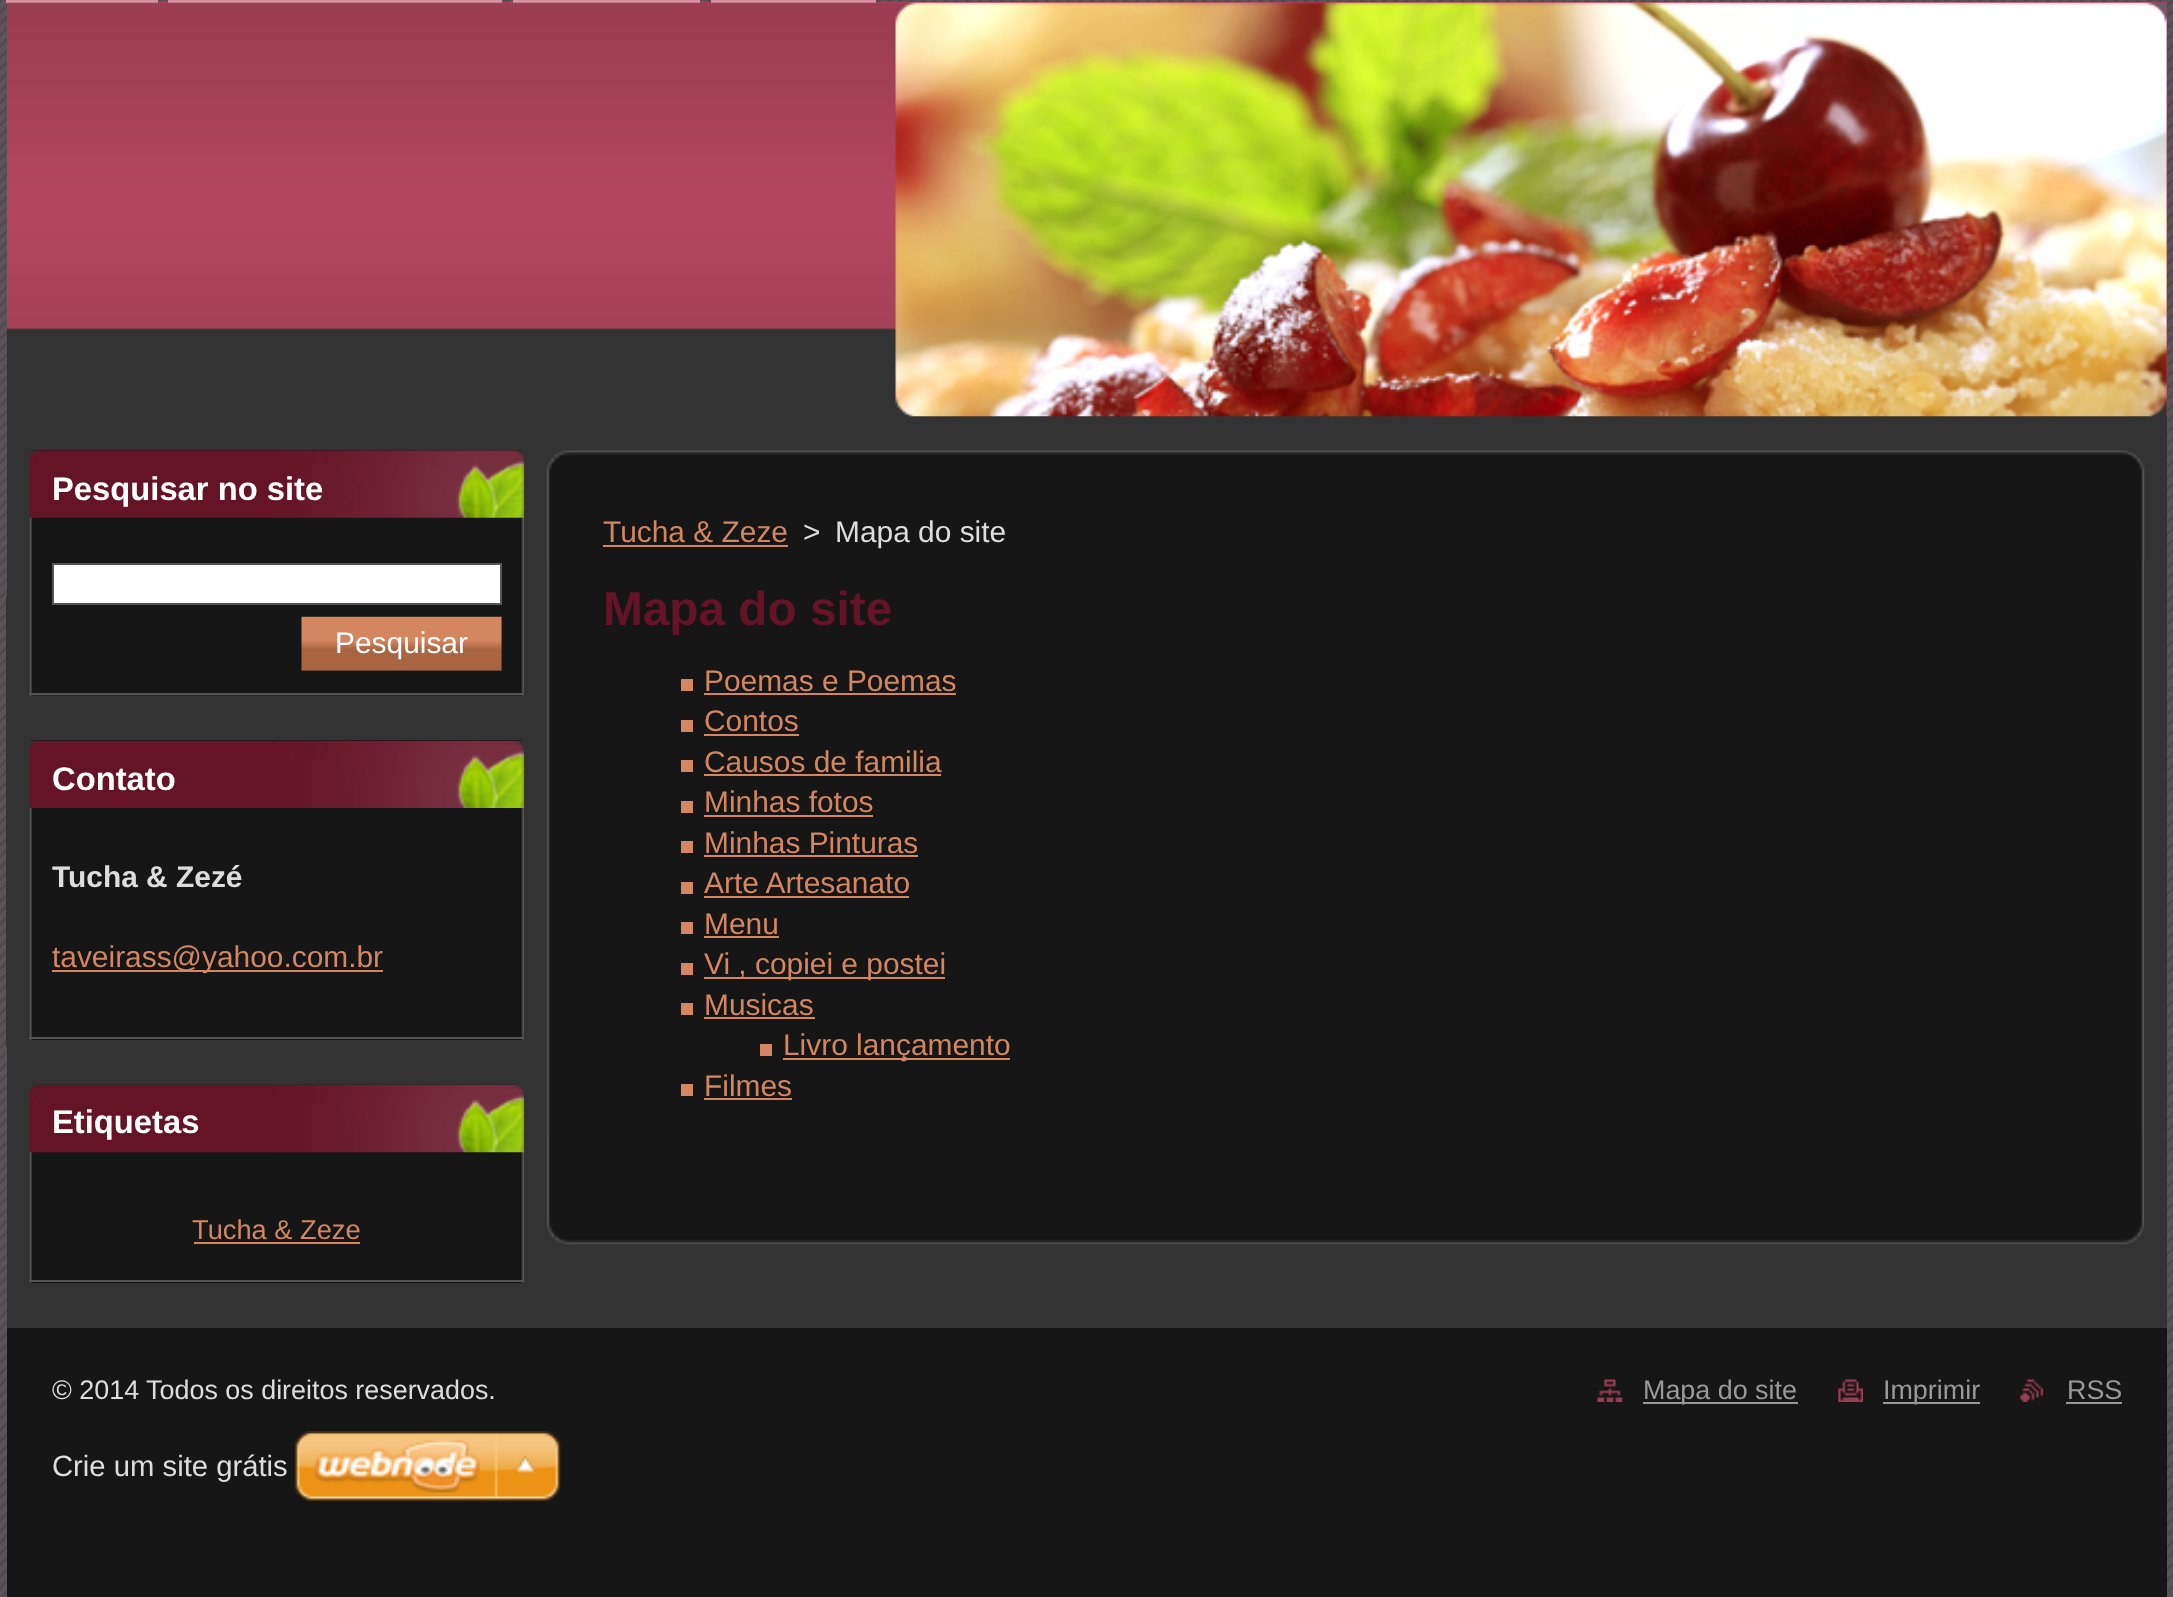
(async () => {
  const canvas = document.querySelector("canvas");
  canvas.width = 2173;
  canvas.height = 1597;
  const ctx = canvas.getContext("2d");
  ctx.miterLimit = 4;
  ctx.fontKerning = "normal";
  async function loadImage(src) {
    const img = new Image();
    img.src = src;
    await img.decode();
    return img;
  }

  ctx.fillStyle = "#ffffff";
  ctx.fillRect(0, 0, 2173, 1597);
  ctx.drawImage(await loadImage("img/1.png"), 0, 0, 2173, 1597);
  for (const [x, y, w, h, color] of [
    [6, 596, 1, 451, "#333333"],
    [6, 0, 152, 3, "#d991a1"],
    [158, 2, 2009, 414, "#ac445d"],
    [168, 0, 334, 3, "#d991a1"],
    [513, 0, 187, 3, "#d991a1"],
    [711, 0, 165, 3, "#d991a1"],
    [7, 416, 2160, 912, "#333333"],
  ]) {
    ctx.fillStyle = color;
    ctx.fillRect(x, y, w, h);
  }
  ctx.drawImage(await loadImage("img/2.png"), 6, 2, 2161, 415);
  ctx.drawImage(await loadImage("img/3.png"), 2148, 2, 19, 20);
  ctx.fillStyle = "#161616";
  ctx.fillRect(29, 450, 495, 243);
  ctx.drawImage(await loadImage("img/4.png"), 29, 450, 495, 246);
  ctx.fillStyle = "#555555";
  ctx.fillRect(29, 693, 495, 2);
  ctx.drawImage(await loadImage("img/5.png"), 29, 450, 496, 68);
  ctx.fillStyle = "#ffffff";
  ctx.beginPath();
  ctx.rect(53, 564, 448, 40);
  ctx.fill();
  ctx.strokeStyle = "#555555";
  ctx.lineWidth = 2;
  ctx.stroke();
  ctx.drawImage(await loadImage("img/6.png"), 301, 616, 201, 55);
  ctx.fillStyle = "#161616";
  ctx.fillRect(29, 740, 495, 300);
  ctx.drawImage(await loadImage("img/7.png"), 29, 740, 495, 300);
  ctx.fillStyle = "#555555";
  ctx.fillRect(29, 1037, 495, 2);
  ctx.drawImage(await loadImage("img/8.png"), 29, 740, 496, 68);
  ctx.fillStyle = "#d3865f";
  ctx.fillRect(52, 970, 331, 2);
  ctx.fillStyle = "#161616";
  ctx.fillRect(29, 1085, 495, 198);
  ctx.drawImage(await loadImage("img/9.png"), 29, 1084, 495, 199);
  ctx.fillStyle = "#555555";
  ctx.fillRect(29, 1280, 495, 2);
  ctx.drawImage(await loadImage("img/10.png"), 29, 1084, 496, 69);
  ctx.fillStyle = "#d3865f";
  ctx.fillRect(194, 1242, 166, 2);
  ctx.drawImage(await loadImage("img/11.png"), 546, 450, 1599, 113);
  ctx.drawImage(await loadImage("img/12.png"), 547, 1132, 1597, 113);
  ctx.drawImage(await loadImage("img/13.png"), 547, 562, 1597, 570);
  for (const [x, y, w, h, color] of [
    [603, 545, 185, 2, "#d3865f"],
    [681, 679, 12, 12, "#d48660"],
    [704, 693, 252, 2, "#d3865f"],
    [681, 720, 12, 12, "#d48660"],
    [704, 734, 95, 2, "#d3865f"],
    [681, 760, 12, 12, "#d48660"],
    [704, 774, 237, 2, "#d3865f"],
    [681, 801, 12, 12, "#d48660"],
    [704, 815, 169, 2, "#d3865f"],
    [681, 841, 12, 12, "#d48660"],
    [704, 855, 214, 2, "#d3865f"],
    [681, 882, 12, 12, "#d48660"],
    [704, 896, 205, 2, "#d3865f"],
    [681, 922, 12, 12, "#d48660"],
    [704, 936, 75, 2, "#d3865f"],
    [681, 963, 12, 12, "#d48660"],
    [704, 977, 241, 2, "#d3865f"],
    [681, 1003, 12, 12, "#d48660"],
    [704, 1017, 111, 2, "#d3865f"],
    [760, 1044, 12, 12, "#d48660"],
    [783, 1058, 227, 2, "#d3865f"],
    [681, 1084, 12, 12, "#d48660"],
    [704, 1098, 88, 2, "#d3865f"],
    [7, 1328, 2160, 269, "#161616"],
  ]) {
    ctx.fillStyle = color;
    ctx.fillRect(x, y, w, h);
  }
  ctx.drawImage(await loadImage("img/14.png"), 1597, 1379, 26, 23);
  ctx.fillStyle = "#999999";
  ctx.fillRect(1643, 1402, 155, 2);
  ctx.drawImage(await loadImage("img/15.png"), 1838, 1379, 25, 23);
  ctx.fillRect(1883, 1402, 97, 2);
  ctx.drawImage(await loadImage("img/16.png"), 2020, 1379, 23, 23);
  ctx.fillRect(2066, 1402, 56, 2);
  ctx.drawImage(await loadImage("img/17.png"), 294, 1431, 267, 70);
  ctx.font = "bold 32.75px Liberation Sans";
  ctx.fillStyle = "#ffffff";
  ctx.fillText("Pesquisar no site", 52, 500);
  ctx.font = "29.9px Liberation Sans";
  ctx.fillText("Pesquisar", 335, 653);
  ctx.font = "bold 32.75px Liberation Sans";
  ctx.fillText("Contato", 52, 790);
  ctx.font = "bold 29.9px Liberation Sans";
  ctx.fillStyle = "#dddddd";
  ctx.fillText("Tucha & Zezé", 52, 887);
  ctx.font = "29.9px Liberation Sans";
  ctx.fillStyle = "#d3865f";
  ctx.fillText("taveirass@yahoo.com.br", 52, 967);
  ctx.font = "bold 32.75px Liberation Sans";
  ctx.fillStyle = "#ffffff";
  ctx.fillText("Etiquetas", 52, 1133);
  ctx.font = "27.25px Liberation Sans";
  ctx.fillStyle = "#d3865f";
  ctx.fillText("Tucha & Zeze", 192, 1239);
  ctx.font = "29.9px Liberation Sans";
  ctx.fillText("Tucha & Zeze", 603, 542);
  ctx.fillStyle = "#dddddd";
  ctx.fillText(">", 803, 542);
  ctx.fillText("Mapa do site", 835, 542);
  ctx.font = "bold 47.75px Liberation Sans";
  ctx.fillStyle = "#651427";
  ctx.fillText("Mapa do site", 603, 625);
  ctx.font = "29.9px Liberation Sans";
  ctx.fillStyle = "#d3865f";
  for (const [text, x, y] of [
    ["Poemas e Poemas", 704, 691],
    ["Contos", 704, 731],
    ["Causos de familia", 704, 772],
    ["Minhas fotos", 704, 812],
    ["Minhas Pinturas", 704, 853],
    ["Arte Artesanato", 704, 893],
    ["Menu", 704, 934],
    ["Vi , copiei e postei", 704, 974],
    ["Musicas", 704, 1015],
    ["Livro lançamento", 783, 1055],
    ["Filmes", 704, 1096],
  ]) {
    ctx.fillText(text, x, y);
  }
  ctx.font = "26.9px Liberation Sans";
  ctx.fillStyle = "#dddddd";
  ctx.fillText("© 2014 Todos os direitos reservados.", 52, 1399);
  ctx.fillStyle = "#999999";
  for (const [text, x, y] of [
    ["Mapa do site", 1643, 1399],
    ["Imprimir", 1883, 1399],
    ["RSS", 2067, 1399],
  ]) {
    ctx.fillText(text, x, y);
  }
  ctx.font = "29.25px Liberation Sans";
  ctx.fillStyle = "#dddddd";
  ctx.fillText("Crie um site grátis", 52, 1476);
})();
